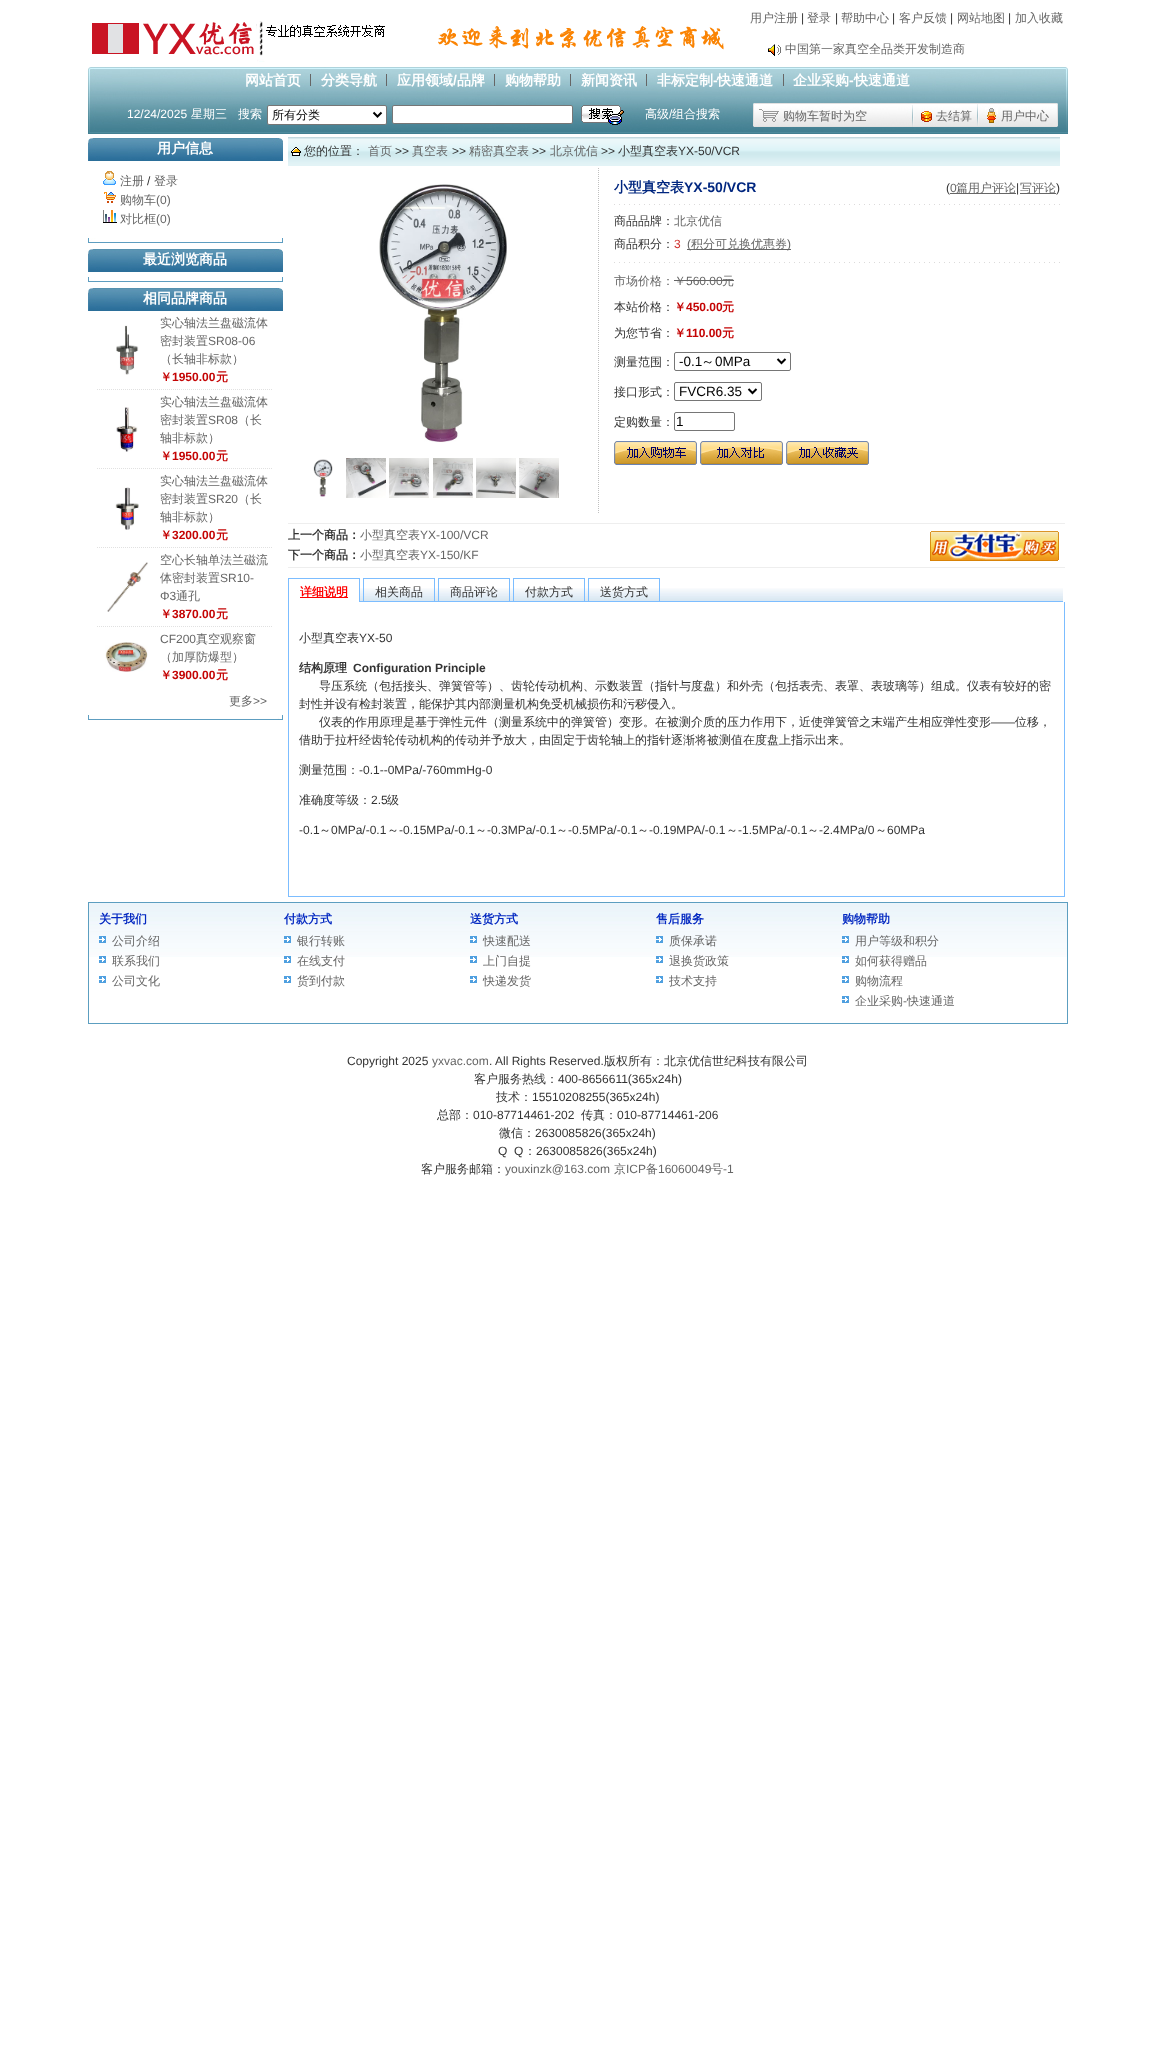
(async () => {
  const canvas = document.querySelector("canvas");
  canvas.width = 1155;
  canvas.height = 2053;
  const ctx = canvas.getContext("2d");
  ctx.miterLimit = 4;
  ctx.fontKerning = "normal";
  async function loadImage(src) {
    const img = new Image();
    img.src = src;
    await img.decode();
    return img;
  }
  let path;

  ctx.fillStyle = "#ffffff";
  ctx.fillRect(0, 0, 1155, 2053);
  ctx.drawImage(await loadImage("img/1.png"), 92, 21, 293, 41);
  ctx.drawImage(await loadImage("img/2.png"), 438, 26, 286, 24);
  ctx.drawImage(await loadImage("img/3.png"), 768, 44, 13, 12);
  ctx.drawImage(await loadImage("img/4.png"), 88, 67, 980, 28);
  for (const [x, y, w, h, color] of [
    [310, 74, 1, 12, "#666666"],
    [386, 74, 1, 12, "#666666"],
    [494, 74, 1, 12, "#666666"],
    [570, 74, 1, 12, "#666666"],
    [646, 74, 1, 12, "#666666"],
    [783, 74, 1, 12, "#666666"],
  ]) {
    ctx.fillStyle = color;
    ctx.fillRect(x, y, w, h);
  }
  ctx.drawImage(await loadImage("img/5.png"), 88, 95, 980, 39);
  ctx.fillStyle = "#ffffff";
  ctx.beginPath();
  ctx.roundRect(267.5, 105.5, 119, 19, 1.5);
  ctx.fill();
  ctx.strokeStyle = "#767676";
  ctx.stroke();
  path = new Path2D("M373.5 112.5L377.5 116.5L381.5 112.5");
  ctx.strokeStyle = "#000000";
  ctx.lineWidth = 2;
  ctx.stroke(path);
  ctx.beginPath();
  ctx.roundRect(392.5, 105.5, 180, 18, 1.5);
  ctx.fill();
  ctx.strokeStyle = "#767676";
  ctx.lineWidth = 1;
  ctx.stroke();
  ctx.drawImage(await loadImage("img/6.png"), 581, 105, 43, 20);
  ctx.drawImage(await loadImage("img/7.png"), 753, 103, 305, 24);
  ctx.drawImage(await loadImage("img/8.png"), 88, 138, 195, 23);
  ctx.drawImage(await loadImage("img/9.png"), 103, 171, 13, 14);
  ctx.drawImage(await loadImage("img/10.png"), 104, 192, 12, 11);
  ctx.drawImage(await loadImage("img/11.png"), 103, 210, 14, 13);
  ctx.drawImage(await loadImage("img/12.png"), 88, 238, 195, 5);
  ctx.drawImage(await loadImage("img/8.png"), 88, 249, 195, 23);
  ctx.drawImage(await loadImage("img/12.png"), 88, 277, 195, 5);
  ctx.drawImage(await loadImage("img/8.png"), 88, 288, 195, 23);
  ctx.drawImage(await loadImage("img/13.png"), 116, 325, 23, 50);
  path = new Path2D("M97 389.5H157");
  ctx.strokeStyle = "#e1e1e1";
  ctx.setLineDash([1, 1]);
  ctx.stroke(path);
  ctx.drawImage(await loadImage("img/14.png"), 116, 407, 22, 45);
  path = new Path2D("M157 389.5H273");
  ctx.stroke(path);
  path = new Path2D("M97 468.5H157");
  ctx.stroke(path);
  ctx.drawImage(await loadImage("img/15.png"), 115, 487, 24, 43);
  path = new Path2D("M157 468.5H273");
  ctx.stroke(path);
  path = new Path2D("M97 547.5H157");
  ctx.stroke(path);
  ctx.drawImage(await loadImage("img/16.png"), 107, 562, 41, 50);
  path = new Path2D("M157 547.5H273");
  ctx.stroke(path);
  path = new Path2D("M97 626.5H157");
  ctx.stroke(path);
  ctx.drawImage(await loadImage("img/17.png"), 105, 642, 43, 30);
  path = new Path2D("M157 626.5H273");
  ctx.stroke(path);
  ctx.drawImage(await loadImage("img/12.png"), 88, 715, 195, 5);
  ctx.drawImage(await loadImage("img/18.png"), 288, 137, 772, 29);
  ctx.drawImage(await loadImage("img/19.png"), 291, 147, 10, 9);
  path = new Path2D("M598.5 168V513");
  ctx.strokeStyle = "#c0c0c0";
  ctx.stroke(path);
  ctx.drawImage(await loadImage("img/20.png"), 379, 184, 128, 259);
  ctx.drawImage(await loadImage("img/21.png"), 313, 459, 20, 38);
  ctx.drawImage(await loadImage("img/22.png"), 346, 458, 40, 40);
  ctx.drawImage(await loadImage("img/23.png"), 389, 458, 40, 40);
  ctx.drawImage(await loadImage("img/24.png"), 433, 458, 40, 40);
  ctx.drawImage(await loadImage("img/25.png"), 476, 458, 40, 40);
  ctx.drawImage(await loadImage("img/26.png"), 519, 458, 40, 40);
  ctx.fillStyle = "#666666";
  ctx.fillRect(950, 193, 66, 1);
  ctx.fillRect(1020, 193, 36, 1);
  ctx.drawImage(await loadImage("img/27.png"), 614, 204, 446, 1);
  ctx.fillRect(687, 249, 104, 1);
  ctx.drawImage(await loadImage("img/27.png"), 614, 262, 446, 1);
  ctx.beginPath();
  ctx.roundRect(674.5, 352.5, 116, 18, 1.5);
  ctx.strokeStyle = "#767676";
  ctx.setLineDash([]);
  ctx.stroke();
  path = new Path2D("M777.5 359L781.5 363L785.5 359");
  ctx.strokeStyle = "#000000";
  ctx.lineWidth = 2;
  ctx.stroke(path);
  ctx.beginPath();
  ctx.roundRect(674.5, 382.5, 87, 18, 1.5);
  ctx.strokeStyle = "#767676";
  ctx.lineWidth = 1;
  ctx.stroke();
  path = new Path2D("M748.5 389L752.5 393L756.5 389");
  ctx.strokeStyle = "#000000";
  ctx.lineWidth = 2;
  ctx.stroke(path);
  ctx.beginPath();
  ctx.roundRect(674.5, 412.5, 60, 18, 1.5);
  ctx.strokeStyle = "#767676";
  ctx.lineWidth = 1;
  ctx.stroke();
  ctx.drawImage(await loadImage("img/28.png"), 614, 441, 83, 24);
  ctx.drawImage(await loadImage("img/29.png"), 700, 441, 83, 24);
  ctx.drawImage(await loadImage("img/30.png"), 786, 441, 83, 24);
  ctx.fillStyle = "#eeeeee";
  ctx.fillRect(288, 523, 777, 1);
  ctx.fillRect(288, 567, 777, 1);
  ctx.drawImage(await loadImage("img/31.png"), 930, 531, 129, 30);
  ctx.drawImage(await loadImage("img/32.png"), 360, 588, 703, 14);
  for (const [x, y, w, h, color] of [
    [288, 578, 72, 1, "#7cbdff"],
    [359, 578, 1, 24, "#7cbdff"],
    [288, 578, 1, 24, "#7cbdff"],
    [300, 597, 48, 1, "#ff0000"],
  ]) {
    ctx.fillStyle = color;
    ctx.fillRect(x, y, w, h);
  }
  ctx.strokeStyle = "#7cbdff";
  ctx.strokeRect(363.5, 578.5, 71, 23);
  ctx.strokeRect(438.5, 578.5, 71, 23);
  ctx.strokeRect(513.5, 578.5, 71, 23);
  ctx.strokeRect(588.5, 578.5, 71, 23);
  for (const [x, y, w, h, color] of [
    [1064, 602, 1, 295, "#7cbdff"],
    [288, 896, 777, 1, "#7cbdff"],
    [288, 602, 1, 295, "#7cbdff"],
  ]) {
    ctx.fillStyle = color;
    ctx.fillRect(x, y, w, h);
  }
  ctx.drawImage(await loadImage("img/33.png"), 89, 903, 978, 54);
  ctx.strokeStyle = "#5c9ec0";
  ctx.strokeRect(88.5, 902.5, 979, 121);
  ctx.drawImage(await loadImage("img/34.png"), 99, 936, 7, 7);
  ctx.drawImage(await loadImage("img/34.png"), 99, 956, 7, 7);
  ctx.drawImage(await loadImage("img/34.png"), 99, 976, 7, 7);
  ctx.drawImage(await loadImage("img/34.png"), 284, 936, 7, 7);
  ctx.drawImage(await loadImage("img/34.png"), 284, 956, 7, 7);
  ctx.drawImage(await loadImage("img/34.png"), 284, 976, 7, 7);
  ctx.drawImage(await loadImage("img/34.png"), 470, 936, 7, 7);
  ctx.drawImage(await loadImage("img/34.png"), 470, 956, 7, 7);
  ctx.drawImage(await loadImage("img/34.png"), 470, 976, 7, 7);
  ctx.drawImage(await loadImage("img/34.png"), 656, 936, 7, 7);
  ctx.drawImage(await loadImage("img/34.png"), 656, 956, 7, 7);
  ctx.drawImage(await loadImage("img/34.png"), 656, 976, 7, 7);
  ctx.drawImage(await loadImage("img/34.png"), 842, 936, 7, 7);
  ctx.drawImage(await loadImage("img/34.png"), 842, 956, 7, 7);
  ctx.drawImage(await loadImage("img/34.png"), 842, 976, 7, 7);
  ctx.drawImage(await loadImage("img/34.png"), 842, 996, 7, 7);
  ctx.font = "500 12px WenQuanYi Zen Hei";
  ctx.fillStyle = "#666666";
  ctx.fillText("用户注册", 750, 22);
  ctx.font = "12px Liberation Sans";
  ctx.fillStyle = "#333333";
  ctx.fillText("|", 801, 22);
  ctx.font = "500 12px WenQuanYi Zen Hei";
  ctx.fillStyle = "#666666";
  ctx.fillText("登录", 807, 22);
  ctx.font = "12px Liberation Sans";
  ctx.fillStyle = "#333333";
  ctx.fillText("|", 835, 22);
  ctx.font = "500 12px WenQuanYi Zen Hei";
  ctx.fillStyle = "#666666";
  ctx.fillText("帮助中心", 841, 22);
  ctx.font = "12px Liberation Sans";
  ctx.fillStyle = "#333333";
  ctx.fillText("|", 892, 22);
  ctx.font = "500 12px WenQuanYi Zen Hei";
  ctx.fillStyle = "#666666";
  ctx.fillText("客户反馈", 899, 22);
  ctx.font = "12px Liberation Sans";
  ctx.fillStyle = "#333333";
  ctx.fillText("|", 950, 22);
  ctx.font = "500 12px WenQuanYi Zen Hei";
  ctx.fillStyle = "#666666";
  ctx.fillText("网站地图", 957, 22);
  ctx.font = "12px Liberation Sans";
  ctx.fillStyle = "#333333";
  ctx.fillText("|", 1008, 22);
  ctx.font = "500 12px WenQuanYi Zen Hei";
  ctx.fillStyle = "#666666";
  ctx.fillText("加入收藏", 1015, 22);
  ctx.fillText("中国第一家真空全品类开发制造商", 785, 53);
  ctx.font = "bold 14px WenQuanYi Zen Hei";
  ctx.fillStyle = "#ffffff";
  for (const [text, x, y] of [
    ["网站首页", 245, 85],
    ["分类导航", 321, 85],
    ["应用领域", 397, 85],
  ]) {
    ctx.fillText(text, x, y);
  }
  ctx.font = "bold 14px Liberation Sans";
  ctx.fillText("/", 453, 85);
  ctx.font = "bold 14px WenQuanYi Zen Hei";
  for (const [text, x, y] of [
    ["品牌", 457, 85],
    ["购物帮助", 505, 85],
    ["新闻资讯", 581, 85],
    ["非标定制", 657, 85],
  ]) {
    ctx.fillText(text, x, y);
  }
  ctx.font = "bold 14px Liberation Sans";
  ctx.fillText("-", 713, 85);
  ctx.font = "bold 14px WenQuanYi Zen Hei";
  ctx.fillText("快速通道", 717, 85);
  ctx.fillText("企业采购", 793, 85);
  ctx.font = "bold 14px Liberation Sans";
  ctx.fillText("-", 849, 85);
  ctx.font = "bold 14px WenQuanYi Zen Hei";
  ctx.fillText("快速通道", 854, 85);
  ctx.font = "12px Liberation Sans";
  ctx.fillText("12/24/2025", 127, 118);
  ctx.font = "500 12px WenQuanYi Zen Hei";
  ctx.fillText("星期三", 191, 118);
  ctx.fillText("搜索", 238, 118);
  ctx.fillStyle = "#000000";
  ctx.fillText("所有分类", 272, 119);
  ctx.fillStyle = "#ffffff";
  ctx.fillText("高级", 645, 118);
  ctx.font = "12px Liberation Sans";
  ctx.fillText("/", 669, 118);
  ctx.font = "500 12px WenQuanYi Zen Hei";
  ctx.fillText("组合搜索", 672, 118);
  ctx.fillStyle = "#666666";
  for (const [text, x, y] of [
    ["购物车暂时为空", 783, 120],
    ["去结算", 936, 120],
    ["用户中心", 1001, 120],
  ]) {
    ctx.fillText(text, x, y);
  }
  ctx.font = "bold 14px WenQuanYi Zen Hei";
  ctx.fillStyle = "#ffffff";
  ctx.fillText("用户信息", 157, 153);
  ctx.font = "500 12px WenQuanYi Zen Hei";
  ctx.fillStyle = "#666666";
  ctx.fillText("注册", 120, 185);
  ctx.font = "12px Liberation Sans";
  ctx.fillStyle = "#333333";
  ctx.fillText("/", 147, 185);
  ctx.font = "500 12px WenQuanYi Zen Hei";
  ctx.fillStyle = "#666666";
  ctx.fillText("登录", 154, 185);
  ctx.fillText("购物车", 120, 204);
  ctx.font = "12px Liberation Sans";
  ctx.fillText("(0)", 156, 204);
  ctx.font = "500 12px WenQuanYi Zen Hei";
  ctx.fillText("对比框", 120, 223);
  ctx.font = "12px Liberation Sans";
  ctx.fillText("(0)", 156, 223);
  ctx.font = "bold 14px WenQuanYi Zen Hei";
  ctx.fillStyle = "#ffffff";
  ctx.fillText("最近浏览商品", 143, 264);
  ctx.fillText("相同品牌商品", 143, 303);
  ctx.font = "500 12px WenQuanYi Zen Hei";
  ctx.fillStyle = "#666666";
  ctx.fillText("实心轴法兰盘磁流体", 160, 327);
  ctx.fillText("密封装置", 160, 345);
  ctx.font = "12px Liberation Sans";
  ctx.fillText("SR08-06", 208, 345);
  ctx.font = "500 12px WenQuanYi Zen Hei";
  ctx.fillText("（长轴非标款）", 160, 363);
  ctx.font = "bold 12px WenQuanYi Zen Hei";
  ctx.fillStyle = "#c40404";
  ctx.fillText("￥", 160, 381);
  ctx.font = "bold 12px Liberation Sans";
  ctx.fillText("1950.00", 172, 381);
  ctx.font = "bold 12px WenQuanYi Zen Hei";
  ctx.fillText("元", 216, 381);
  ctx.font = "500 12px WenQuanYi Zen Hei";
  ctx.fillStyle = "#666666";
  ctx.fillText("实心轴法兰盘磁流体", 160, 406);
  ctx.fillText("密封装置", 160, 424);
  ctx.font = "12px Liberation Sans";
  ctx.fillText("SR08", 208, 424);
  ctx.font = "500 12px WenQuanYi Zen Hei";
  ctx.fillText("（长", 238, 424);
  ctx.fillText("轴非标款）", 160, 442);
  ctx.font = "bold 12px WenQuanYi Zen Hei";
  ctx.fillStyle = "#c40404";
  ctx.fillText("￥", 160, 460);
  ctx.font = "bold 12px Liberation Sans";
  ctx.fillText("1950.00", 172, 460);
  ctx.font = "bold 12px WenQuanYi Zen Hei";
  ctx.fillText("元", 216, 460);
  ctx.font = "500 12px WenQuanYi Zen Hei";
  ctx.fillStyle = "#666666";
  ctx.fillText("实心轴法兰盘磁流体", 160, 485);
  ctx.fillText("密封装置", 160, 503);
  ctx.font = "12px Liberation Sans";
  ctx.fillText("SR20", 208, 503);
  ctx.font = "500 12px WenQuanYi Zen Hei";
  ctx.fillText("（长", 238, 503);
  ctx.fillText("轴非标款）", 160, 521);
  ctx.font = "bold 12px WenQuanYi Zen Hei";
  ctx.fillStyle = "#c40404";
  ctx.fillText("￥", 160, 539);
  ctx.font = "bold 12px Liberation Sans";
  ctx.fillText("3200.00", 172, 539);
  ctx.font = "bold 12px WenQuanYi Zen Hei";
  ctx.fillText("元", 216, 539);
  ctx.font = "500 12px WenQuanYi Zen Hei";
  ctx.fillStyle = "#666666";
  ctx.fillText("空心长轴单法兰磁流", 160, 564);
  ctx.fillText("体密封装置", 160, 582);
  ctx.font = "12px Liberation Sans";
  ctx.fillText("SR10-", 220, 582);
  ctx.fillText("Φ3", 160, 600);
  ctx.font = "500 12px WenQuanYi Zen Hei";
  ctx.fillText("通孔", 176, 600);
  ctx.font = "bold 12px WenQuanYi Zen Hei";
  ctx.fillStyle = "#c40404";
  ctx.fillText("￥", 160, 618);
  ctx.font = "bold 12px Liberation Sans";
  ctx.fillText("3870.00", 172, 618);
  ctx.font = "bold 12px WenQuanYi Zen Hei";
  ctx.fillText("元", 216, 618);
  ctx.font = "12px Liberation Sans";
  ctx.fillStyle = "#666666";
  ctx.fillText("CF200", 160, 643);
  ctx.font = "500 12px WenQuanYi Zen Hei";
  ctx.fillText("真空观察窗", 196, 643);
  ctx.fillText("（加厚防爆型）", 160, 661);
  ctx.font = "bold 12px WenQuanYi Zen Hei";
  ctx.fillStyle = "#c40404";
  ctx.fillText("￥", 160, 679);
  ctx.font = "bold 12px Liberation Sans";
  ctx.fillText("3900.00", 172, 679);
  ctx.font = "bold 12px WenQuanYi Zen Hei";
  ctx.fillText("元", 216, 679);
  ctx.font = "500 12px WenQuanYi Zen Hei";
  ctx.fillStyle = "#666666";
  ctx.fillText("更多", 229, 705);
  ctx.font = "12px Liberation Sans";
  ctx.fillText(">>", 253, 705);
  ctx.font = "500 12px WenQuanYi Zen Hei";
  ctx.fillStyle = "#333333";
  ctx.fillText("您的位置：", 304, 155);
  ctx.fillStyle = "#666666";
  ctx.fillText("首页", 368, 155);
  ctx.font = "12px Liberation Sans";
  ctx.fillStyle = "#333333";
  ctx.fillText(">>", 395, 155);
  ctx.font = "500 12px WenQuanYi Zen Hei";
  ctx.fillStyle = "#666666";
  ctx.fillText("真空表", 412, 155);
  ctx.font = "12px Liberation Sans";
  ctx.fillStyle = "#333333";
  ctx.fillText(">>", 452, 155);
  ctx.font = "500 12px WenQuanYi Zen Hei";
  ctx.fillStyle = "#666666";
  ctx.fillText("精密真空表", 469, 155);
  ctx.font = "12px Liberation Sans";
  ctx.fillStyle = "#333333";
  ctx.fillText(">>", 532, 155);
  ctx.font = "500 12px WenQuanYi Zen Hei";
  ctx.fillStyle = "#666666";
  ctx.fillText("北京优信", 550, 155);
  ctx.font = "12px Liberation Sans";
  ctx.fillStyle = "#333333";
  ctx.fillText(">>", 601, 155);
  ctx.font = "500 12px WenQuanYi Zen Hei";
  ctx.fillText("小型真空表", 618, 155);
  ctx.font = "12px Liberation Sans";
  ctx.fillText("YX-50/VCR", 678, 155);
  ctx.font = "bold 14px WenQuanYi Zen Hei";
  ctx.fillStyle = "#00267f";
  ctx.fillText("小型真空表", 614, 192);
  ctx.font = "bold 14px Liberation Sans";
  ctx.fillText("YX-50/VCR", 684, 192);
  ctx.font = "12px Liberation Sans";
  ctx.fillStyle = "#333333";
  ctx.fillText("(", 946, 192);
  ctx.fillStyle = "#666666";
  ctx.fillText("0", 950, 192);
  ctx.font = "500 12px WenQuanYi Zen Hei";
  ctx.fillText("篇用户评论", 956, 192);
  ctx.font = "12px Liberation Sans";
  ctx.fillStyle = "#333333";
  ctx.fillText("|", 1016, 192);
  ctx.font = "500 12px WenQuanYi Zen Hei";
  ctx.fillStyle = "#666666";
  ctx.fillText("写评论", 1020, 192);
  ctx.font = "12px Liberation Sans";
  ctx.fillStyle = "#333333";
  ctx.fillText(")", 1056, 192);
  ctx.font = "500 12px WenQuanYi Zen Hei";
  ctx.fillText("商品品牌：", 614, 225);
  ctx.fillStyle = "#666666";
  ctx.fillText("北京优信", 674, 225);
  ctx.fillStyle = "#333333";
  ctx.fillText("商品积分：", 614, 248);
  ctx.font = "12px Liberation Sans";
  ctx.fillStyle = "#d03430";
  ctx.fillText("3", 674, 248);
  ctx.fillStyle = "#666666";
  ctx.fillText("(", 687, 248);
  ctx.font = "500 12px WenQuanYi Zen Hei";
  ctx.fillText("积分可兑换优惠券", 691, 248);
  ctx.font = "12px Liberation Sans";
  ctx.fillText(")", 787, 248);
  ctx.font = "500 12px WenQuanYi Zen Hei";
  ctx.fillText("市场价格：￥", 614, 285);
  ctx.font = "12px Liberation Sans";
  ctx.fillText("560.00", 686, 285);
  ctx.font = "500 12px WenQuanYi Zen Hei";
  ctx.fillText("元", 722, 285);
  ctx.fillStyle = "#656565";
  ctx.fillRect(674, 280, 60, 1);
  ctx.fillStyle = "#333333";
  ctx.fillText("本站价格：", 614, 311);
  ctx.font = "bold 12px WenQuanYi Zen Hei";
  ctx.fillStyle = "#c40404";
  ctx.fillText("￥", 674, 311);
  ctx.font = "bold 12px Liberation Sans";
  ctx.fillText("450.00", 686, 311);
  ctx.font = "bold 12px WenQuanYi Zen Hei";
  ctx.fillText("元", 722, 311);
  ctx.font = "500 12px WenQuanYi Zen Hei";
  ctx.fillStyle = "#333333";
  ctx.fillText("为您节省：", 614, 337);
  ctx.font = "bold 12px WenQuanYi Zen Hei";
  ctx.fillStyle = "#c40404";
  ctx.fillText("￥", 674, 337);
  ctx.font = "bold 12px Liberation Sans";
  ctx.fillText("110.00", 686, 337);
  ctx.font = "bold 12px WenQuanYi Zen Hei";
  ctx.fillText("元", 722, 337);
  ctx.font = "500 12px WenQuanYi Zen Hei";
  ctx.fillStyle = "#333333";
  ctx.fillText("测量范围：", 614, 366);
  ctx.font = "13.5px Liberation Sans";
  ctx.fillStyle = "#000000";
  ctx.fillText("-0.1", 679, 366);
  ctx.font = "500 13.5px WenQuanYi Zen Hei";
  ctx.fillText("～", 701, 366);
  ctx.font = "13.5px Liberation Sans";
  ctx.fillText("0MPa", 715, 366);
  ctx.font = "500 12px WenQuanYi Zen Hei";
  ctx.fillStyle = "#333333";
  ctx.fillText("接口形式：", 614, 396);
  ctx.font = "13.5px Liberation Sans";
  ctx.fillStyle = "#000000";
  ctx.fillText("FVCR6.35", 679, 396);
  ctx.font = "500 12px WenQuanYi Zen Hei";
  ctx.fillStyle = "#333333";
  ctx.fillText("定购数量：", 614, 426);
  ctx.font = "13.5px Liberation Sans";
  ctx.fillStyle = "#000000";
  ctx.fillText("1", 676, 426);
  ctx.font = "bold 12px WenQuanYi Zen Hei";
  ctx.fillStyle = "#333333";
  ctx.fillText("上一个商品：", 288, 539);
  ctx.font = "500 12px WenQuanYi Zen Hei";
  ctx.fillStyle = "#666666";
  ctx.fillText("小型真空表", 360, 539);
  ctx.font = "12px Liberation Sans";
  ctx.fillText("YX-100/VCR", 420, 539);
  ctx.font = "bold 12px WenQuanYi Zen Hei";
  ctx.fillStyle = "#333333";
  ctx.fillText("下一个商品：", 288, 559);
  ctx.font = "500 12px WenQuanYi Zen Hei";
  ctx.fillStyle = "#666666";
  ctx.fillText("小型真空表", 360, 559);
  ctx.font = "12px Liberation Sans";
  ctx.fillText("YX-150/KF", 420, 559);
  ctx.font = "bold 12px WenQuanYi Zen Hei";
  ctx.fillStyle = "#ff0000";
  ctx.fillText("详细说明", 300, 596);
  ctx.font = "500 12px WenQuanYi Zen Hei";
  ctx.fillStyle = "#333333";
  for (const [text, x, y] of [
    ["相关商品", 375, 596],
    ["商品评论", 450, 596],
    ["付款方式", 525, 596],
    ["送货方式", 600, 596],
    ["小型真空表", 299, 642],
  ]) {
    ctx.fillText(text, x, y);
  }
  ctx.font = "12px Liberation Sans";
  ctx.fillText("YX-50", 359, 642);
  ctx.font = "bold 12px WenQuanYi Zen Hei";
  ctx.fillText("结构原理", 299, 672);
  ctx.font = "bold 12px Liberation Sans";
  ctx.fillText("Configuration Principle", 353, 672);
  ctx.font = "500 12px WenQuanYi Zen Hei";
  for (const [text, x, y] of [
    ["导压系统（包括接头、弹簧管等）、齿轮传动机构、示数装置（指针与度盘）和外壳（包括表壳、表罩、表玻璃等）组成。仪表有较好的密", 319, 690],
    ["封性并设有检封装置，能保护其内部测量机构免受机械损伤和污秽侵入。", 299, 708],
    ["仪表的作用原理是基于弹性元件（测量系统中的弹簧管）变形。在被测介质的压力作用下，近使弹簧管之末端产生相应弹性变形", 319, 726],
  ]) {
    ctx.fillText(text, x, y);
  }
  ctx.font = "12px Liberation Sans";
  ctx.fillText("——", 991, 726);
  ctx.font = "500 12px WenQuanYi Zen Hei";
  for (const [text, x, y] of [
    ["位移，", 1015, 726],
    ["借助于拉杆经齿轮传动机构的传动并予放大，由固定于齿轮轴上的指针逐渐将被测值在度盘上指示出来。", 299, 744],
    ["测量范围：", 299, 774],
  ]) {
    ctx.fillText(text, x, y);
  }
  ctx.font = "12px Liberation Sans";
  ctx.fillText("-0.1--0MPa/-760mmHg-0", 359, 774);
  ctx.font = "500 12px WenQuanYi Zen Hei";
  ctx.fillText("准确度等级：", 299, 804);
  ctx.font = "12px Liberation Sans";
  ctx.fillText("2.5", 371, 804);
  ctx.font = "500 12px WenQuanYi Zen Hei";
  ctx.fillText("级", 387, 804);
  ctx.font = "12px Liberation Sans";
  ctx.fillText("-0.1", 299, 834);
  ctx.font = "500 12px WenQuanYi Zen Hei";
  ctx.fillText("～", 319, 834);
  ctx.font = "12px Liberation Sans";
  ctx.fillText("0MPa/-0.1", 331, 834);
  ctx.font = "500 12px WenQuanYi Zen Hei";
  ctx.fillText("～", 387, 834);
  ctx.font = "12px Liberation Sans";
  ctx.fillText("-0.15MPa/-0.1", 399, 834);
  ctx.font = "500 12px WenQuanYi Zen Hei";
  ctx.fillText("～", 475, 834);
  ctx.font = "12px Liberation Sans";
  ctx.fillText("-0.3MPa/-0.1", 487, 834);
  ctx.font = "500 12px WenQuanYi Zen Hei";
  ctx.fillText("～", 556, 834);
  ctx.font = "12px Liberation Sans";
  ctx.fillText("-0.5MPa/-0.1", 568, 834);
  ctx.font = "500 12px WenQuanYi Zen Hei";
  ctx.fillText("～", 637, 834);
  ctx.font = "12px Liberation Sans";
  ctx.fillText("-0.19MPA/-0.1", 649, 834);
  ctx.font = "500 12px WenQuanYi Zen Hei";
  ctx.fillText("～", 726, 834);
  ctx.font = "12px Liberation Sans";
  ctx.fillText("-1.5MPa/-0.1", 738, 834);
  ctx.font = "500 12px WenQuanYi Zen Hei";
  ctx.fillText("～", 807, 834);
  ctx.font = "12px Liberation Sans";
  ctx.fillText("-2.4MPa/0", 819, 834);
  ctx.font = "500 12px WenQuanYi Zen Hei";
  ctx.fillText("～", 875, 834);
  ctx.font = "12px Liberation Sans";
  ctx.fillText("60MPa", 887, 834);
  ctx.font = "bold 12px WenQuanYi Zen Hei";
  ctx.fillStyle = "#0328c1";
  ctx.fillText("关于我们", 99, 923);
  ctx.font = "500 12px WenQuanYi Zen Hei";
  ctx.fillStyle = "#666666";
  for (const [text, x, y] of [
    ["公司介绍", 112, 945],
    ["联系我们", 112, 965],
    ["公司文化", 112, 985],
  ]) {
    ctx.fillText(text, x, y);
  }
  ctx.font = "bold 12px WenQuanYi Zen Hei";
  ctx.fillStyle = "#0328c1";
  ctx.fillText("付款方式", 284, 923);
  ctx.font = "500 12px WenQuanYi Zen Hei";
  ctx.fillStyle = "#666666";
  for (const [text, x, y] of [
    ["银行转账", 297, 945],
    ["在线支付", 297, 965],
    ["货到付款", 297, 985],
  ]) {
    ctx.fillText(text, x, y);
  }
  ctx.font = "bold 12px WenQuanYi Zen Hei";
  ctx.fillStyle = "#0328c1";
  ctx.fillText("送货方式", 470, 923);
  ctx.font = "500 12px WenQuanYi Zen Hei";
  ctx.fillStyle = "#666666";
  for (const [text, x, y] of [
    ["快速配送", 483, 945],
    ["上门自提", 483, 965],
    ["快递发货", 483, 985],
  ]) {
    ctx.fillText(text, x, y);
  }
  ctx.font = "bold 12px WenQuanYi Zen Hei";
  ctx.fillStyle = "#0328c1";
  ctx.fillText("售后服务", 656, 923);
  ctx.font = "500 12px WenQuanYi Zen Hei";
  ctx.fillStyle = "#666666";
  for (const [text, x, y] of [
    ["质保承诺", 669, 945],
    ["退换货政策", 669, 965],
    ["技术支持", 669, 985],
  ]) {
    ctx.fillText(text, x, y);
  }
  ctx.font = "bold 12px WenQuanYi Zen Hei";
  ctx.fillStyle = "#0328c1";
  ctx.fillText("购物帮助", 842, 923);
  ctx.font = "500 12px WenQuanYi Zen Hei";
  ctx.fillStyle = "#666666";
  for (const [text, x, y] of [
    ["用户等级和积分", 855, 945],
    ["如何获得赠品", 855, 965],
    ["购物流程", 855, 985],
    ["企业采购", 855, 1005],
  ]) {
    ctx.fillText(text, x, y);
  }
  ctx.font = "12px Liberation Sans";
  ctx.fillText("-", 903, 1005);
  ctx.font = "500 12px WenQuanYi Zen Hei";
  ctx.fillText("快速通道", 907, 1005);
  ctx.font = "12px Liberation Sans";
  ctx.fillStyle = "#333333";
  ctx.fillText("Copyright 2025", 347, 1065);
  ctx.fillStyle = "#666666";
  ctx.fillText("yxvac.com", 432, 1065);
  ctx.fillStyle = "#333333";
  ctx.fillText(". All Rights Reserved.", 489, 1065);
  ctx.font = "500 12px WenQuanYi Zen Hei";
  ctx.fillText("版权所有：北京优信世纪科技有限公司", 604, 1065);
  ctx.fillText("客户服务热线：", 474, 1083);
  ctx.font = "12px Liberation Sans";
  ctx.fillText("400-8656611(365x24h)", 558, 1083);
  ctx.font = "500 12px WenQuanYi Zen Hei";
  ctx.fillText("技术：", 496, 1101);
  ctx.font = "12px Liberation Sans";
  ctx.fillText("15510208255(365x24h)", 532, 1101);
  ctx.font = "500 12px WenQuanYi Zen Hei";
  ctx.fillText("总部：", 437, 1119);
  ctx.font = "12px Liberation Sans";
  ctx.fillText("010-87714461-202", 473, 1119);
  ctx.font = "500 12px WenQuanYi Zen Hei";
  ctx.fillText("传真：", 581, 1119);
  ctx.font = "12px Liberation Sans";
  ctx.fillText("010-87714461-206", 617, 1119);
  ctx.font = "500 12px WenQuanYi Zen Hei";
  ctx.fillText("微信：", 499, 1137);
  ctx.font = "12px Liberation Sans";
  ctx.fillText("2630085826(365x24h)", 535, 1137);
  ctx.fillText("Q  Q", 498, 1155);
  ctx.font = "500 12px WenQuanYi Zen Hei";
  ctx.fillText("：", 524, 1155);
  ctx.font = "12px Liberation Sans";
  ctx.fillText("2630085826(365x24h)", 536, 1155);
  ctx.font = "500 12px WenQuanYi Zen Hei";
  ctx.fillText("客户服务邮箱：", 421, 1173);
  ctx.font = "12px Liberation Sans";
  ctx.fillStyle = "#666666";
  ctx.fillText("youxinzk@163.com", 505, 1173);
  ctx.font = "500 12px WenQuanYi Zen Hei";
  ctx.fillText("京", 614, 1173);
  ctx.font = "12px Liberation Sans";
  ctx.fillText("ICP", 626, 1173);
  ctx.font = "500 12px WenQuanYi Zen Hei";
  ctx.fillText("备", 646, 1173);
  ctx.font = "12px Liberation Sans";
  ctx.fillText("16060049", 658, 1173);
  ctx.font = "500 12px WenQuanYi Zen Hei";
  ctx.fillText("号", 711, 1173);
  ctx.font = "12px Liberation Sans";
  ctx.fillText("-1", 723, 1173);
})();
